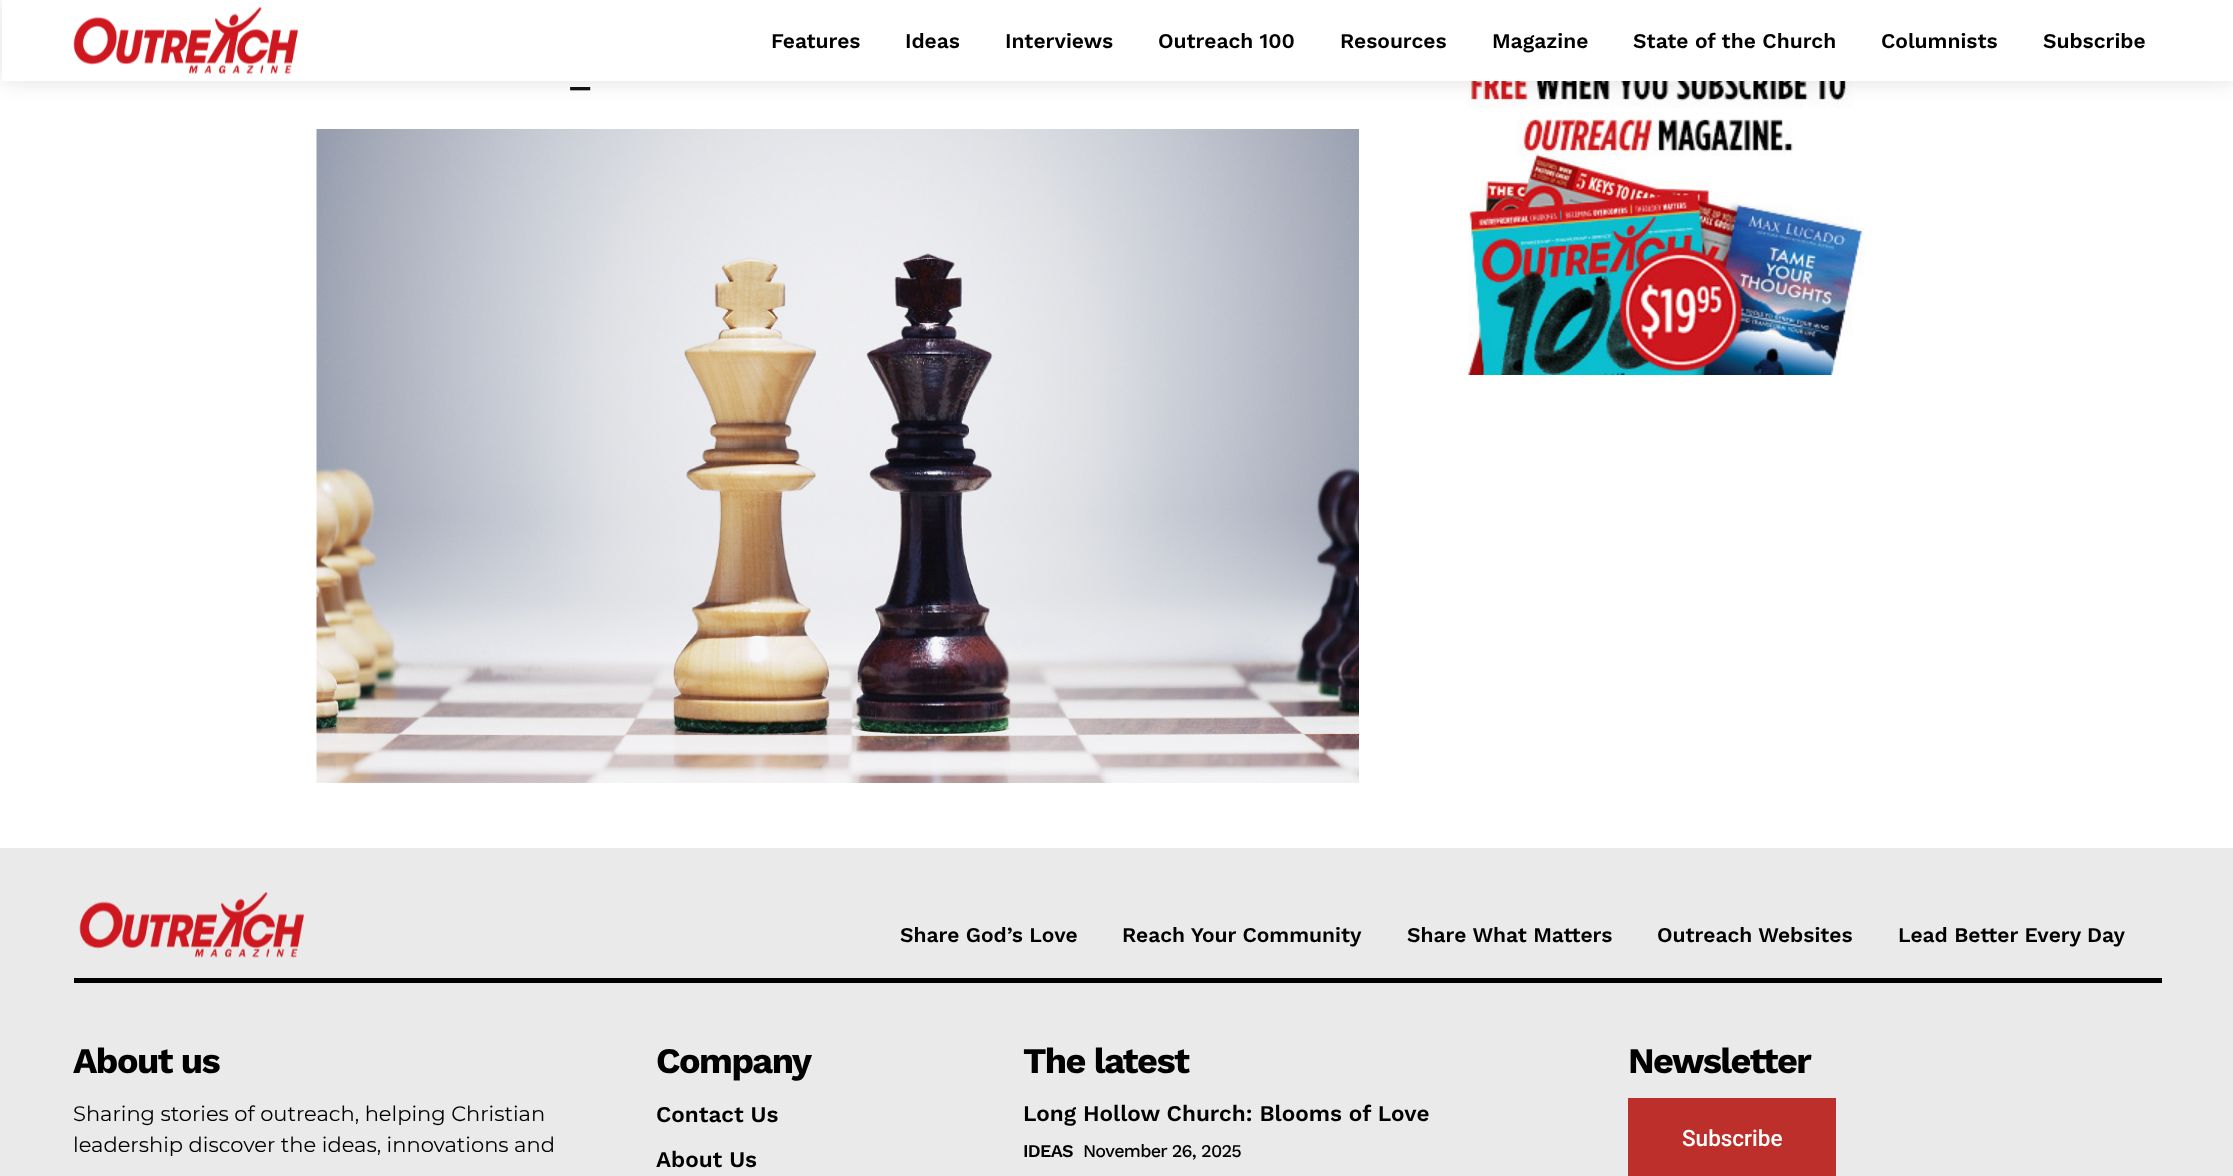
(async () => {
  const canvas = document.querySelector("canvas");
  canvas.width = 2233;
  canvas.height = 1176;
  const ctx = canvas.getContext("2d");
  ctx.miterLimit = 4;
  ctx.fontKerning = "normal";
  async function loadImage(src) {
    const img = new Image();
    img.src = src;
    await img.decode();
    return img;
  }
  let path;

  ctx.fillStyle = "#ffffff";
  ctx.fillRect(0, 0, 2233, 1176);
  ctx.drawImage(await loadImage("img/1.png"), 73, 7, 226, 67);
  ctx.drawImage(await loadImage("img/3.png"), 1468, 81, 397, 294);
  ctx.save();
  path = new Path2D("M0 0H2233V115H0ZM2 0H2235V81H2Z");
  ctx.clip(path, "evenodd");
  ctx.fillStyle = "rgba(0, 0, 0, 0.12)";
  ctx.filter = "blur(11px)";
  ctx.beginPath();
  ctx.rect(2, 0, 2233, 81);
  ctx.fill();
  ctx.filter = "none";
  ctx.restore();
  ctx.drawImage(await loadImage("img/2.png"), 316, 129, 1043, 654);
  ctx.fillStyle = "#eaeaea";
  ctx.fillRect(0, 848, 2233, 328);
  ctx.fillStyle = "#000000";
  ctx.fillRect(74, 978, 2088, 5);
  ctx.drawImage(await loadImage("img/4.png"), 79, 892, 226, 66);
  ctx.fillStyle = "#bd2f2b";
  ctx.fillRect(1628, 1098, 208, 78);
  ctx.font = "600 21px Work Sans";
  ctx.fillStyle = "#000000";
  for (const [text, x, y] of [
    ["Features", 771, 48],
    ["Ideas", 905, 48],
    ["Interviews", 1005, 48],
    ["Outreach 100", 1158, 48],
    ["Resources", 1340, 48],
    ["Magazine", 1492, 48],
    ["State of the Church", 1633, 48],
    ["Columnists", 1881, 48],
    ["Subscribe", 2043, 48],
  ]) {
    ctx.fillText(text, x, y);
  }
  ctx.font = "45px Roboto";
  ctx.fillStyle = "#111111";
  ctx.fillText("_", 570, 87);
  ctx.font = "600 21px Work Sans";
  ctx.fillStyle = "#000000";
  for (const [text, x, y] of [
    ["Share God’s Love", 900, 942],
    ["Reach Your Community", 1122, 942],
    ["Share What Matters", 1407, 942],
    ["Outreach Websites", 1657, 942],
    ["Lead Better Every Day", 1898, 942],
  ]) {
    ctx.fillText(text, x, y);
  }
  ctx.letterSpacing = "-1.5px";
  ctx.font = "bold 36px Work Sans";
  ctx.fillText("About us", 73, 1073);
  ctx.letterSpacing = "0px";
  ctx.font = "21px Montserrat";
  ctx.fillText("Sharing stories of outreach, helping Christian", 73, 1121);
  ctx.fillText("leadership discover the ideas, innovations and", 73, 1152);
  ctx.letterSpacing = "-1.5px";
  ctx.font = "bold 36px Work Sans";
  ctx.fillText("Company", 656, 1073);
  ctx.letterSpacing = "0px";
  ctx.font = "600 22.5px Work Sans";
  ctx.fillText("Contact Us", 656, 1122);
  ctx.fillText("About Us", 656, 1167);
  ctx.letterSpacing = "-1.5px";
  ctx.font = "bold 36px Work Sans";
  ctx.fillText("The latest", 1023, 1073);
  ctx.letterSpacing = "0px";
  ctx.font = "600 22.5px Work Sans";
  ctx.fillText("Long Hollow Church: Blooms of Love", 1023, 1121);
  ctx.letterSpacing = "-0.75px";
  ctx.font = "600 18px Work Sans";
  ctx.fillText("IDEAS", 1023, 1157);
  ctx.font = "500 18px Work Sans";
  ctx.fillText("November 26, 2025", 1083, 1157);
  ctx.letterSpacing = "-1.5px";
  ctx.font = "bold 36px Work Sans";
  ctx.fillText("Newsletter", 1628, 1073);
  ctx.letterSpacing = "0px";
  ctx.font = "500 22.5px Roboto";
  ctx.fillStyle = "#ffffff";
  ctx.fillText("Subscribe", 1682, 1146);
})();
